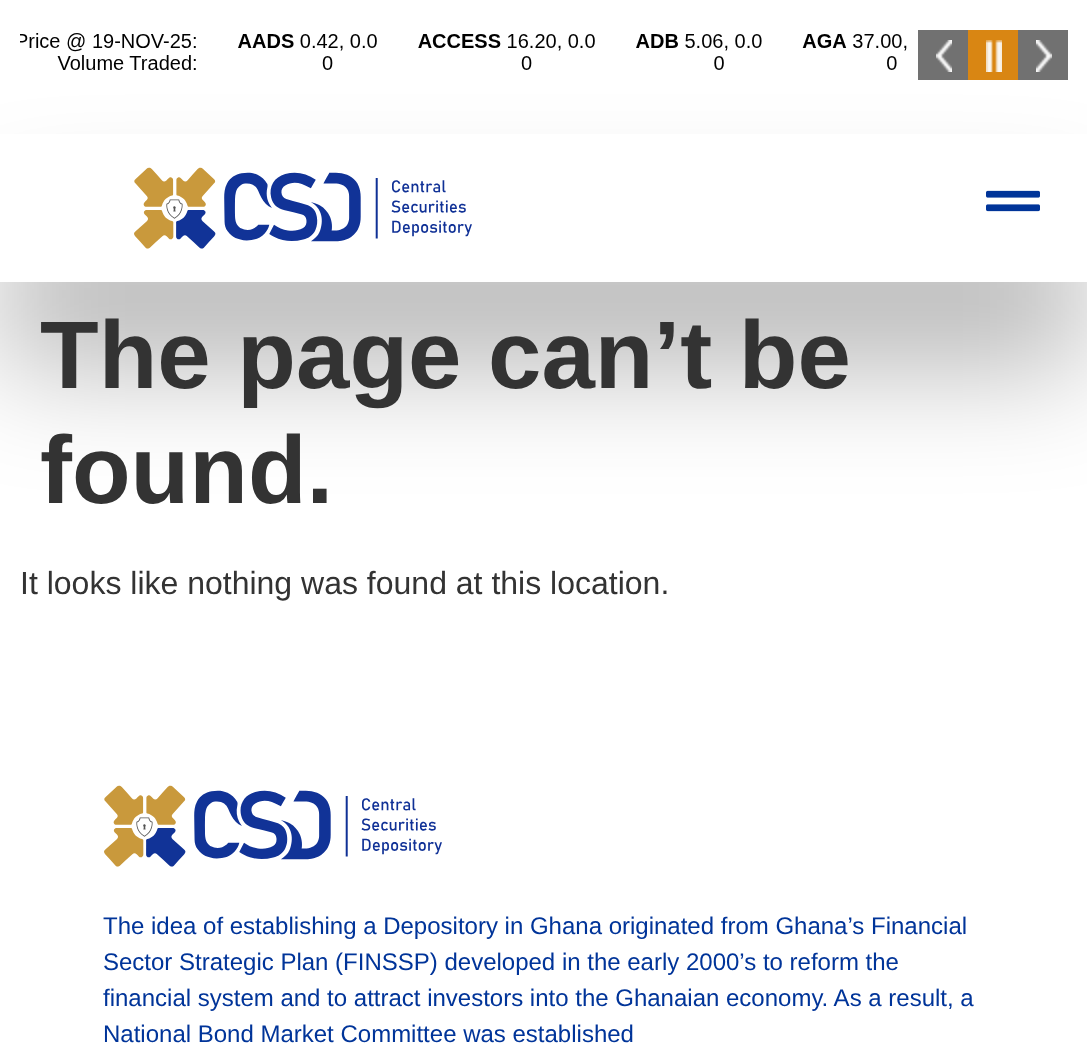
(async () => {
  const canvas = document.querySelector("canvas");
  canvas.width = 1087;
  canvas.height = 1061;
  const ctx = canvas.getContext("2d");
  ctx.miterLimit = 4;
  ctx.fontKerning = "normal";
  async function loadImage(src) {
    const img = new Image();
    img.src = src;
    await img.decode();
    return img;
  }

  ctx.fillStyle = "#ffffff";
  ctx.fillRect(0, 0, 1087, 1061);
  ctx.drawImage(await loadImage("img/1.png"), 20, 30, 1048, 50);
  ctx.fillStyle = "rgba(0, 0, 0, 0.28)";
  ctx.filter = "blur(58px)";
  ctx.beginPath();
  ctx.rect(0, 220, 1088, 148);
  ctx.fill();
  ctx.filter = "none";
  ctx.fillStyle = "#ffffff";
  ctx.fillRect(0, 134, 1087, 148);
  ctx.drawImage(await loadImage("img/2.png"), 134, 167, 338, 82);
  ctx.drawImage(await loadImage("img/3.png"), 986, 190, 54, 22);
  ctx.drawImage(await loadImage("img/4.png"), 104, 785, 338, 82);
  ctx.font = "bold 96px Liberation Sans";
  ctx.fillStyle = "#333333";
  ctx.fillText("The page can’t be", 40, 388);
  ctx.fillText("found.", 40, 503);
  ctx.font = "32px Liberation Sans";
  ctx.fillText("It looks like nothing was found at this location.", 20, 594);
  ctx.font = "24px Liberation Sans";
  ctx.fillStyle = "#003499";
  for (const [text, x, y] of [
    ["The idea of establishing a Depository in Ghana originated from Ghana’s Financial", 103, 934],
    ["Sector Strategic Plan (FINSSP) developed in the early 2000’s to reform the", 103, 970],
    ["financial system and to attract investors into the Ghanaian economy. As a result, a", 103, 1006],
    ["National Bond Market Committee was established", 103, 1042],
  ]) {
    ctx.fillText(text, x, y);
  }
})();
